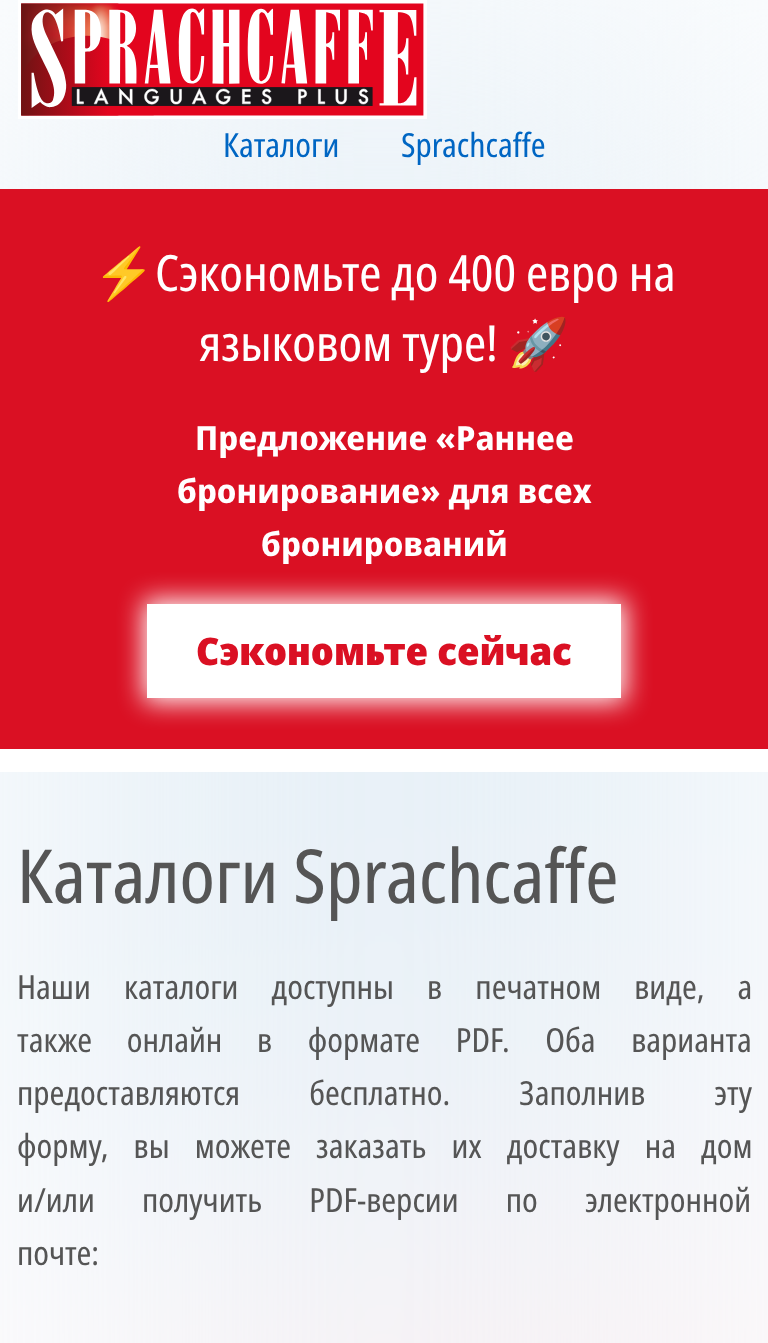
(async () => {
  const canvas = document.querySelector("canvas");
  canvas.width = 768;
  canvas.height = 1343;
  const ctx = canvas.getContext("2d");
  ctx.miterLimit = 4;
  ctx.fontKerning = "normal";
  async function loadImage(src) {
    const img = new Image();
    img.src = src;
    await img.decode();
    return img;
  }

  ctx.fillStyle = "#ffffff";
  ctx.fillRect(0, 0, 768, 1343);
  ctx.drawImage(await loadImage("img/1.png"), 0, 0, 768, 1343);
  ctx.drawImage(await loadImage("img/2.png"), 18, 0, 409, 119);
  ctx.fillStyle = "#da1023";
  ctx.fillRect(0, 189, 768, 560);
  ctx.fillStyle = "#ffffff";
  ctx.filter = "blur(13px)";
  ctx.beginPath();
  ctx.rect(144, 600, 481, 102);
  ctx.fill();
  ctx.filter = "none";
  ctx.fillRect(147, 604, 474, 94);
  ctx.fillRect(0, 749, 768, 23);
  ctx.wordSpacing = "55px";
  ctx.font = "33.25px Noto Sans Display";
  ctx.fillStyle = "#0066c3";
  ctx.fillText("Каталоги Sprachcaffe", 223, 157);
  ctx.wordSpacing = "0px";
  ctx.font = "49.9px Noto Color Emoji";
  ctx.fillStyle = "#ffffff";
  ctx.fillText("⚡", 93, 291);
  ctx.font = "49.9px Noto Sans Display";
  ctx.fillText("Сэкономьте до 400 евро на", 155, 291);
  ctx.fillText("языковом туре!", 199, 361);
  ctx.font = "49.9px Noto Color Emoji";
  ctx.fillText("🚀", 507, 361);
  ctx.font = "bold 33.25px Noto Sans Display";
  for (const [text, x, y] of [
    ["Предложение «Раннее", 195, 450],
    ["бронирование» для всех", 177, 503],
    ["бронирований", 261, 556],
  ]) {
    ctx.fillText(text, x, y);
  }
  ctx.font = "900 38px Noto Sans Display";
  ctx.fillStyle = "#da1023";
  ctx.fillText("Сэкономьте сейчас", 196, 665);
  ctx.font = "74.75px Noto Sans Display";
  ctx.fillStyle = "#555555";
  ctx.fillText("Каталоги Sprachcaffe", 17, 903);
  ctx.wordSpacing = "26.5px";
  ctx.font = "33.25px Noto Sans Display";
  ctx.fillText("Наши каталоги доступны в печатном виде, а", 17, 999);
  ctx.wordSpacing = "28px";
  ctx.fillText("также онлайн", 17, 1052);
  ctx.wordSpacing = "29px";
  ctx.fillText("в формате PDF. Оба варианта", 257, 1052);
  ctx.wordSpacing = "62.5px";
  ctx.fillText("предоставляются бесплатно. Заполнив эту", 17, 1105);
  ctx.wordSpacing = "18.5px";
  ctx.fillText("форму, вы можете заказать их доставку на дом", 17, 1158);
  ctx.wordSpacing = "40.5px";
  ctx.fillText("и/или получить PDF-версии по электронной", 17, 1212);
  ctx.wordSpacing = "0px";
  ctx.fillText("почте:", 17, 1265);
})();
